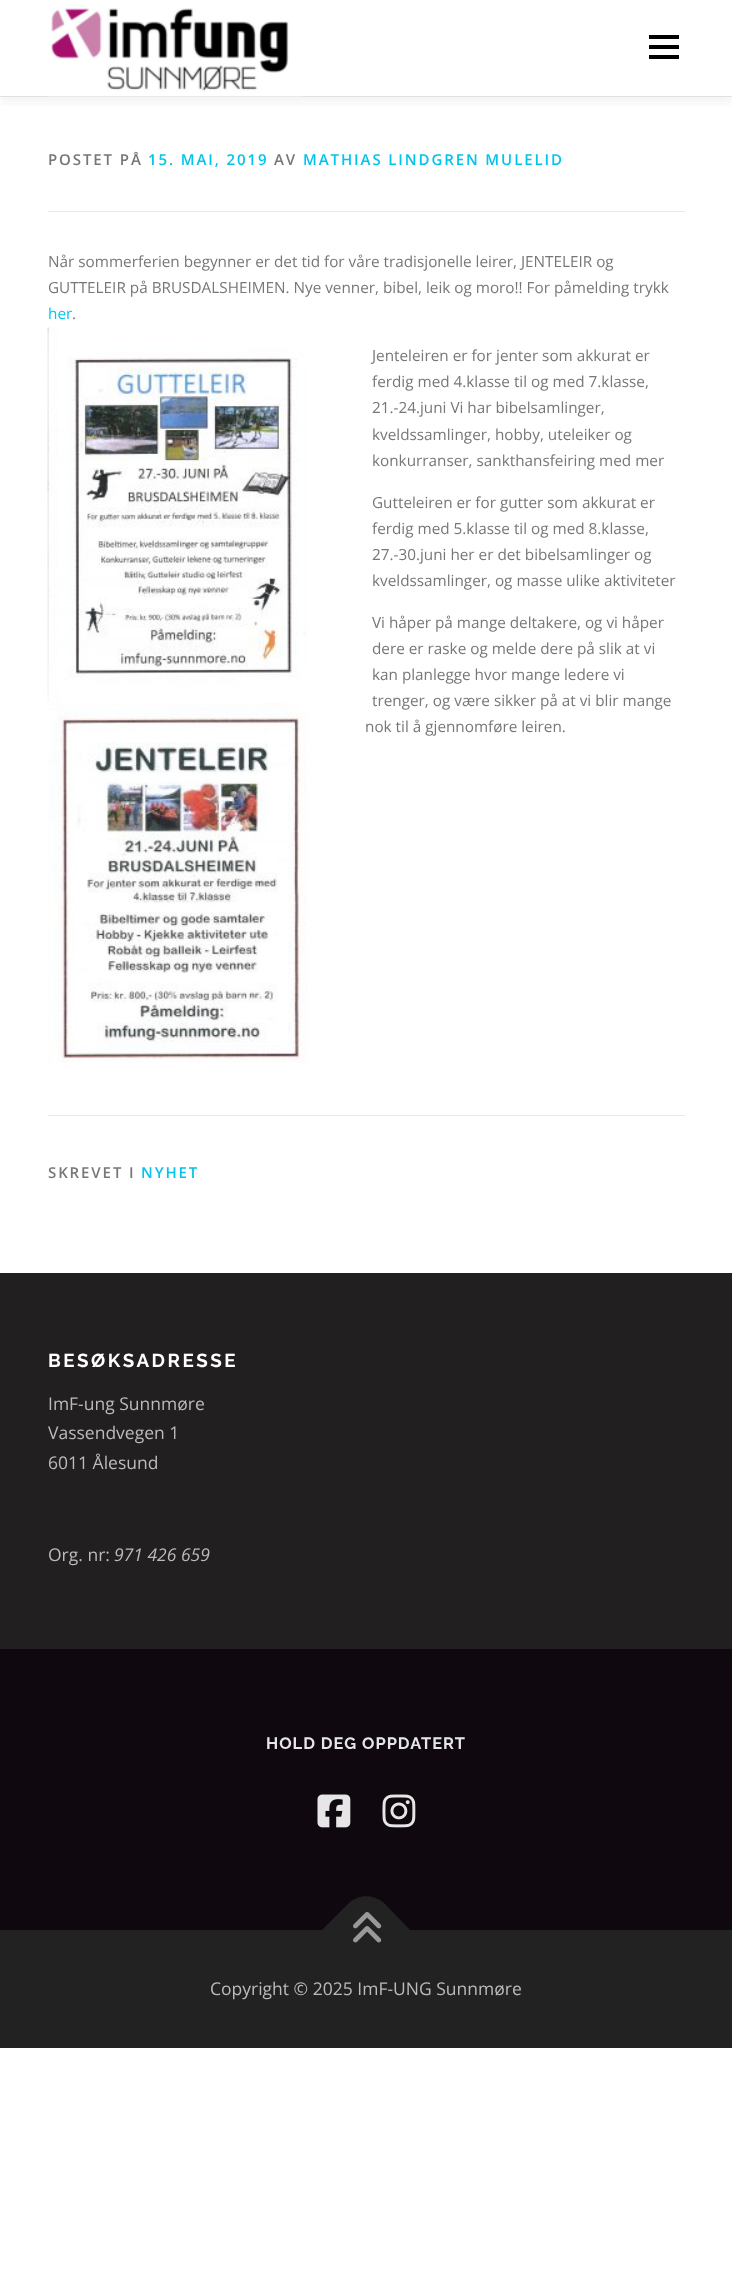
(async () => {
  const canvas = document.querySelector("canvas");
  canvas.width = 732;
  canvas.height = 2289;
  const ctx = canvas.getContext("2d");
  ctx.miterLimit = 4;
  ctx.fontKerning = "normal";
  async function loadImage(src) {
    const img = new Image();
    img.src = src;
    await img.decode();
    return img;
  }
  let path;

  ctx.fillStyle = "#ffffff";
  ctx.fillRect(0, 0, 732, 2289);
  ctx.fillStyle = "#e9e9e9";
  ctx.fillRect(0, 96, 732, 1);
  ctx.save();
  ctx.beginPath();
  ctx.rect(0, 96, 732, 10);
  ctx.clip();
  ctx.fillStyle = "rgba(50, 50, 50, 0.06)";
  ctx.filter = "blur(6px)";
  ctx.beginPath();
  ctx.rect(0, 6, 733, 97);
  ctx.fill();
  ctx.filter = "none";
  ctx.restore();
  ctx.drawImage(await loadImage("img/1.png"), 47, 6, 256, 91);
  for (const [x, y, w, h, color] of [
    [649, 45, 30, 4, "#000000"],
    [649, 35, 30, 4, "#000000"],
    [649, 55, 30, 4, "#000000"],
    [48, 211, 637, 1, "#e9e9e9"],
  ]) {
    ctx.fillStyle = color;
    ctx.fillRect(x, y, w, h);
  }
  ctx.drawImage(await loadImage("img/2.png"), 47, 327, 260, 375);
  ctx.drawImage(await loadImage("img/3.png"), 48, 703, 260, 360);
  for (const [x, y, w, h, color] of [
    [48, 1115, 637, 1, "#e9e9e9"],
    [0, 1649, 732, 281, "#0f090f"],
    [0, 1273, 732, 376, "#211f1f"],
  ]) {
    ctx.fillStyle = color;
    ctx.fillRect(x, y, w, h);
  }
  ctx.drawImage(await loadImage("img/4.png"), 317, 1794, 34, 34);
  ctx.drawImage(await loadImage("img/5.png"), 382, 1794, 34, 34);
  ctx.fillStyle = "#222222";
  ctx.fillRect(0, 1930, 732, 118);
  path = new Path2D("M322 1930L349 1903C358 1894 374 1894 384 1903L410 1930L366 1974Z");
  ctx.fill(path);
  ctx.drawImage(await loadImage("img/6.png"), 353, 1912, 29, 31);
  ctx.letterSpacing = "1.9px";
  ctx.font = "600 15px Open Sans";
  ctx.fillStyle = "#777777";
  ctx.fillText("POSTET PÅ", 48, 165);
  ctx.fillStyle = "#03c4eb";
  ctx.fillText("15. MAI, 2019", 148, 165);
  ctx.fillStyle = "#777777";
  ctx.fillText("AV", 274, 165);
  ctx.fillStyle = "#03c4eb";
  ctx.fillText("MATHIAS LINDGREN MULELID", 303, 165);
  ctx.letterSpacing = "0px";
  ctx.font = "15.3px Open Sans";
  ctx.fillStyle = "#777777";
  ctx.fillText("Når sommerferien begynner er det tid for våre tradisjonelle leirer, JENTELEIR og", 48, 267);
  ctx.fillText("GUTTELEIR på BRUSDALSHEIMEN. Nye venner, bibel, leik og moro!! For påmelding trykk", 48, 293);
  ctx.fillStyle = "#03c4eb";
  ctx.fillText("her", 48, 319);
  ctx.fillStyle = "#777777";
  for (const [text, x, y] of [
    [".", 72, 319],
    ["Jenteleiren er for jenter som akkurat er", 372, 361],
    ["ferdig med 4.klasse til og med 7.klasse,", 372, 387],
    ["21.-24.juni Vi har bibelsamlinger,", 372, 413],
    ["kveldssamlinger, hobby, uteleiker og", 372, 440],
    ["konkurranser, sankthansfeiring med mer", 372, 466],
    ["Gutteleiren er for gutter som akkurat er", 372, 508],
    ["ferdig med 5.klasse til og med 8.klasse,", 372, 534],
    ["27.-30.juni her er det bibelsamlinger og", 372, 560],
    ["kveldssamlinger, og masse ulike aktiviteter", 372, 586],
    ["Vi håper på mange deltakere, og vi håper", 372, 628],
    ["dere er raske og melde dere på slik at vi", 372, 654],
    ["kan planlegge hvor mange ledere vi", 372, 680],
    ["trenger, og være sikker på at vi blir mange", 372, 706],
    ["nok til å gjennomføre leiren.", 365, 732],
  ]) {
    ctx.fillText(text, x, y);
  }
  ctx.letterSpacing = "1.9px";
  ctx.font = "600 15px Open Sans";
  ctx.fillText("SKREVET I", 48, 1178);
  ctx.fillStyle = "#03c4eb";
  ctx.fillText("NYHET", 141, 1178);
  ctx.letterSpacing = "2.5px";
  ctx.font = "bold 18.75px Raleway";
  ctx.fillStyle = "#ffffff";
  ctx.fillText("BESØKSADRESSE", 48, 1367);
  ctx.letterSpacing = "0px";
  ctx.font = "17.5px Open Sans";
  ctx.fillStyle = "#bbbbbb";
  for (const [text, x, y] of [
    ["ImF-ung Sunnmøre", 48, 1410],
    ["Vassendvegen 1", 48, 1439],
    ["6011 Ålesund", 48, 1469],
    ["Org. nr:", 48, 1561],
  ]) {
    ctx.fillText(text, x, y);
  }
  ctx.font = "italic 17.5px Open Sans";
  ctx.fillText("971 426 659", 114, 1561);
  ctx.letterSpacing = "1px";
  ctx.font = "bold 16.4px Raleway";
  ctx.fillStyle = "#e7e6e7";
  ctx.fillText("HOLD DEG OPPDATERT", 266, 1749);
  ctx.letterSpacing = "0px";
  ctx.font = "17.5px Open Sans";
  ctx.fillStyle = "#bbbbbb";
  ctx.fillText("Copyright © 2025 ImF-UNG Sunnmøre", 210, 1995);
})();
